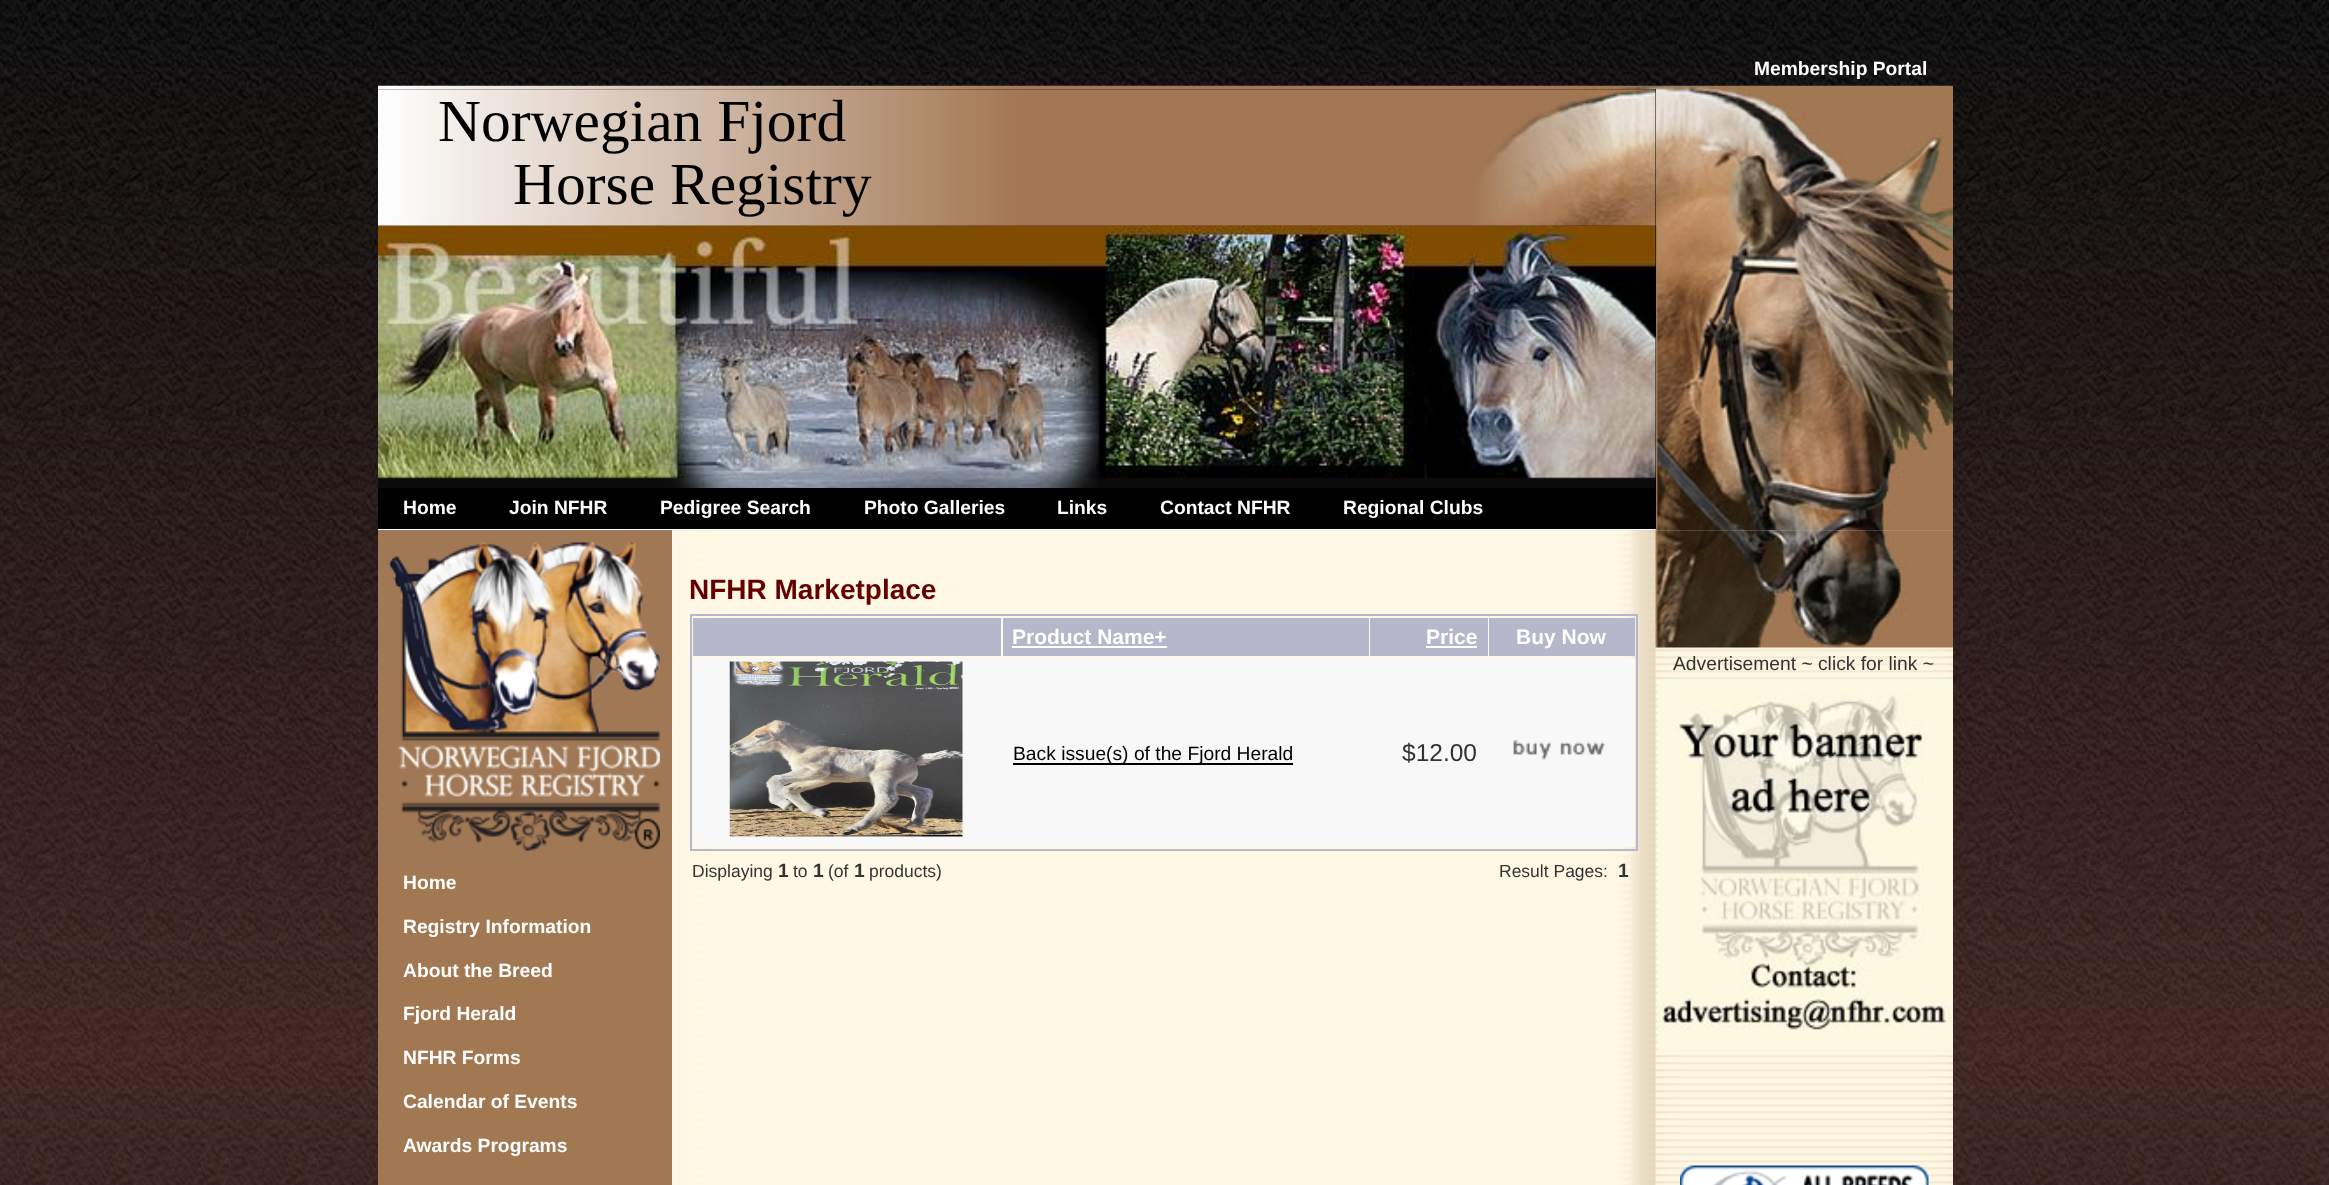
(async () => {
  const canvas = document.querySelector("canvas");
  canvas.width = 2329;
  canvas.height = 1185;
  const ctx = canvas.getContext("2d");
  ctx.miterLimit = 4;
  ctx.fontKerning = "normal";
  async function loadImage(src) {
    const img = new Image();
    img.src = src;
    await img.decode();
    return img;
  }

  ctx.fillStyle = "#ffffff";
  ctx.fillRect(0, 0, 2329, 1185);
  ctx.drawImage(await loadImage("img/1.png"), 0, 0, 2329, 1185);
  ctx.drawImage(await loadImage("img/2.png"), 378, 85, 1575, 446);
  ctx.fillStyle = "#000000";
  ctx.fillRect(378, 89, 1278, 137);
  ctx.drawImage(await loadImage("img/3.png"), 378, 89, 1278, 137);
  ctx.fillRect(1655, 226, 1, 262);
  ctx.drawImage(await loadImage("img/4.png"), 378, 225, 1278, 263);
  ctx.fillRect(378, 488, 1278, 41);
  ctx.drawImage(await loadImage("img/5.png"), 672, 530, 987, 655);
  ctx.drawImage(await loadImage("img/6.png"), 672, 530, 984, 1);
  ctx.strokeStyle = "#b6b7cb";
  ctx.lineWidth = 2;
  ctx.strokeRect(691, 615, 946, 235);
  for (const [x, y, w, h, color] of [
    [693, 618, 308, 38, "#b6b7cb"],
    [1003, 618, 366, 38, "#b6b7cb"],
    [1012, 646, 155, 2, "#ffffff"],
    [1370, 618, 118, 38, "#b6b7cb"],
    [1426, 646, 51, 2, "#ffffff"],
    [1489, 618, 146, 38, "#b6b7cb"],
    [693, 658, 942, 189, "#f8f8f9"],
  ]) {
    ctx.fillStyle = color;
    ctx.fillRect(x, y, w, h);
  }
  ctx.drawImage(await loadImage("img/7.png"), 729, 661, 234, 176);
  ctx.fillStyle = "#000000";
  ctx.fillRect(1013, 763, 280, 2);
  ctx.drawImage(await loadImage("img/8.png"), 1513, 739, 93, 21);
  ctx.drawImage(await loadImage("img/9.png"), 1655, 530, 298, 655);
  ctx.drawImage(await loadImage("img/10.png"), 1655, 530, 298, 118);
  ctx.drawImage(await loadImage("img/11.png"), 1657, 679, 296, 371);
  ctx.drawImage(await loadImage("img/12.png"), 1680, 1165, 249, 20);
  ctx.fillStyle = "#a27852";
  ctx.fillRect(378, 868, 294, 317);
  ctx.fillStyle = "#a07855";
  ctx.fillRect(378, 530, 294, 338);
  ctx.drawImage(await loadImage("img/13.png"), 388, 539, 272, 312);
  ctx.font = "bold 19.25px Liberation Sans";
  ctx.fillStyle = "#ffffff";
  ctx.fillText("Membership Portal", 1754, 75);
  ctx.font = "59.5px Liberation Serif";
  ctx.fillStyle = "#000000";
  ctx.fillText("Norwegian Fjord", 438, 141);
  ctx.fillText("Horse Registry", 513, 204);
  ctx.font = "bold 19.25px Liberation Sans";
  ctx.fillStyle = "#ffffff";
  for (const [text, x, y] of [
    ["Home", 403, 514],
    ["Join NFHR", 509, 514],
    ["Pedigree Search", 660, 514],
    ["Photo Galleries", 864, 514],
    ["Links", 1057, 514],
    ["Contact NFHR", 1160, 514],
    ["Regional Clubs", 1343, 514],
  ]) {
    ctx.fillText(text, x, y);
  }
  ctx.font = "bold 28px Liberation Sans";
  ctx.fillStyle = "#660000";
  ctx.fillText("NFHR Marketplace", 689, 599);
  ctx.font = "bold 21px Liberation Sans";
  ctx.fillStyle = "#ffffff";
  for (const [text, x, y] of [
    ["Product Name+", 1012, 644],
    ["Price", 1426, 644],
    ["Buy Now", 1516, 644],
  ]) {
    ctx.fillText(text, x, y);
  }
  ctx.font = "19.25px Liberation Sans";
  ctx.fillStyle = "#000000";
  ctx.fillText("Back issue(s) of the Fjord Herald", 1013, 760);
  ctx.font = "24.5px Liberation Sans";
  ctx.fillStyle = "#333333";
  ctx.fillText("$12.00", 1402, 761);
  ctx.font = "17.5px Liberation Sans";
  ctx.fillText("Displaying", 692, 877);
  ctx.font = "bold 19.25px Liberation Sans";
  ctx.fillText("1", 778, 877);
  ctx.font = "17.5px Liberation Sans";
  ctx.fillText("to", 793, 877);
  ctx.font = "bold 19.25px Liberation Sans";
  ctx.fillText("1", 813, 877);
  ctx.font = "17.5px Liberation Sans";
  ctx.fillText("(of", 828, 877);
  ctx.font = "bold 19.25px Liberation Sans";
  ctx.fillText("1", 854, 877);
  ctx.font = "17.5px Liberation Sans";
  ctx.fillText("products)", 869, 877);
  ctx.fillText("Result Pages:", 1499, 877);
  ctx.font = "bold 19.25px Liberation Sans";
  ctx.fillText("1", 1618, 877);
  ctx.font = "19.25px Liberation Sans";
  ctx.fillText("Advertisement ~ click for link ~", 1673, 670);
  ctx.font = "bold 19.25px Liberation Sans";
  ctx.fillStyle = "#ffffff";
  for (const [text, x, y] of [
    ["Home", 403, 889],
    ["Registry Information", 403, 933],
    ["About the Breed", 403, 977],
    ["Fjord Herald", 403, 1020],
    ["NFHR Forms", 403, 1064],
    ["Calendar of Events", 403, 1108],
    ["Awards Programs", 403, 1152],
  ]) {
    ctx.fillText(text, x, y);
  }
})();
